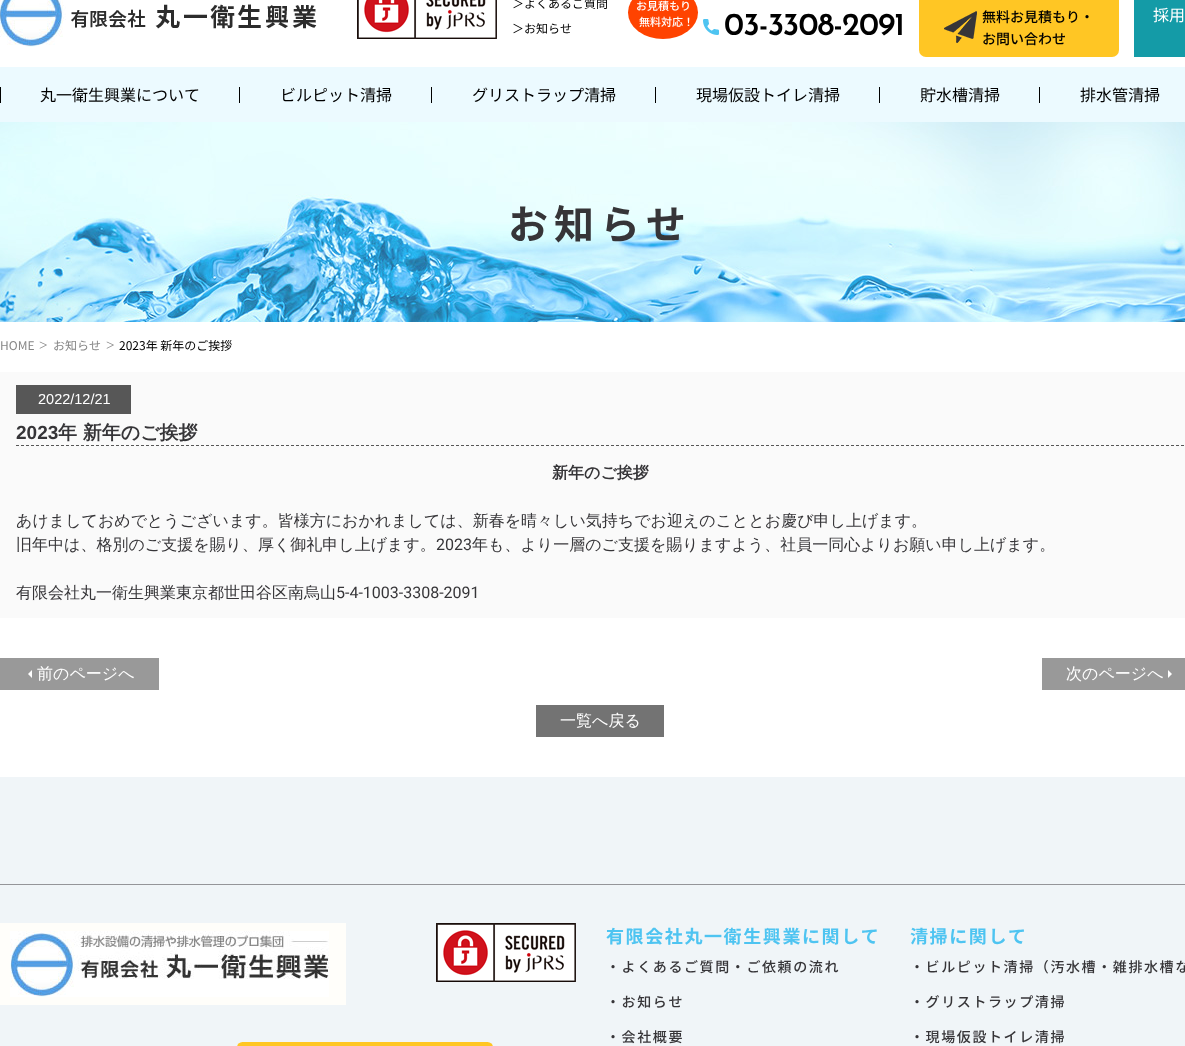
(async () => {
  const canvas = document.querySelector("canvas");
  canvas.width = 1185;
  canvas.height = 1046;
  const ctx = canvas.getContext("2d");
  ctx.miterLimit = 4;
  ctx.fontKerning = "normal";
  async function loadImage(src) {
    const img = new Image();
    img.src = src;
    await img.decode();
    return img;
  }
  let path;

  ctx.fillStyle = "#ffffff";
  ctx.fillRect(0, 0, 1185, 1046);
  ctx.drawImage(await loadImage("img/1.png"), 0, 0, 317, 47);
  ctx.drawImage(await loadImage("img/2.png"), 357, 0, 140, 39);
  ctx.fillStyle = "#ff4300";
  ctx.beginPath();
  ctx.ellipse(663, 12.5, 35, 26.5, 0, 0, Math.PI * 2);
  ctx.fill();
  ctx.drawImage(await loadImage("img/3.png"), 703, 19, 16, 16);
  ctx.fillStyle = "#ffc624";
  ctx.beginPath();
  ctx.roundRect(919, -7, 200, 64, 7);
  ctx.fill();
  ctx.drawImage(await loadImage("img/4.png"), 944, 11, 33, 32);
  for (const [x, y, w, h, color] of [
    [1134, 0, 51, 57, "#149ba7"],
    [0, 67, 1185, 55, "#ecfaff"],
    [0, 87, 1, 16, "#000000"],
    [239, 87, 1, 16, "#000000"],
    [431, 87, 1, 16, "#000000"],
    [655, 87, 1, 16, "#000000"],
    [879, 87, 1, 16, "#000000"],
    [1039, 87, 1, 16, "#000000"],
  ]) {
    ctx.fillStyle = color;
    ctx.fillRect(x, y, w, h);
  }
  ctx.drawImage(await loadImage("img/5.png"), 0, 122, 1185, 200);
  ctx.fillStyle = "#fafafa";
  ctx.fillRect(0, 372, 1185, 246);
  path = new Path2D("M16 445.5H1184");
  ctx.strokeStyle = "#575757";
  ctx.setLineDash([3, 2]);
  ctx.stroke(path);
  ctx.fillStyle = "#575757";
  ctx.fillRect(16, 385, 115, 29);
  ctx.fillStyle = "#999999";
  ctx.fillRect(0, 658, 159, 32);
  ctx.fillStyle = "#ffffff";
  path = new Path2D("M32 670V678L28 674Z");
  ctx.fill(path);
  ctx.fillStyle = "#999999";
  ctx.fillRect(1042, 658, 143, 32);
  ctx.fillStyle = "#ffffff";
  path = new Path2D("M1168 678V670L1172 674Z");
  ctx.fill(path);
  for (const [x, y, w, h, color] of [
    [536, 705, 128, 32, "#737373"],
    [0, 777, 1185, 269, "#f0f5f8"],
    [0, 884, 1185, 1, "#949599"],
  ]) {
    ctx.fillStyle = color;
    ctx.fillRect(x, y, w, h);
  }
  ctx.drawImage(await loadImage("img/6.png"), 0, 923, 346, 82);
  ctx.drawImage(await loadImage("img/7.png"), 436, 923, 140, 59);
  ctx.fillStyle = "#ffc624";
  ctx.beginPath();
  ctx.roundRect(237, 1042, 256, 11, 7);
  ctx.fill();
  ctx.font = "12px Noto Sans JP";
  ctx.fillStyle = "#000000";
  ctx.fillText("＞よくあるご質問", 512, 8);
  ctx.fillText("＞お知らせ", 512, 33);
  ctx.font = "500 11px Noto Sans JP";
  ctx.fillStyle = "#ffffff";
  ctx.fillText("お見積もり", 636, 10);
  ctx.fillText("無料対応！", 639, 26);
  ctx.letterSpacing = "-1px";
  ctx.font = "600 32px Josefin Sans";
  ctx.fillStyle = "#000000";
  ctx.fillText("03-3308-2091", 724, 35);
  ctx.letterSpacing = "0px";
  ctx.font = "500 14px Noto Sans JP";
  ctx.fillText("無料お見積もり・", 982, 22);
  ctx.fillText("お問い合わせ", 982, 44);
  ctx.font = "16px Noto Sans JP";
  ctx.fillStyle = "#ffffff";
  ctx.fillText("採用", 1153, 21);
  ctx.fillStyle = "#000000";
  for (const [text, x, y] of [
    ["丸一衛生興業について", 40, 101],
    ["ビルピット清掃", 280, 101],
    ["グリストラップ清掃", 472, 101],
    ["現場仮設トイレ清掃", 696, 101],
    ["貯水槽清掃", 920, 101],
    ["排水管清掃", 1080, 101],
  ]) {
    ctx.fillText(text, x, y);
  }
  ctx.letterSpacing = "6px";
  ctx.font = "bold 40px Noto Sans JP";
  ctx.fillStyle = "#363538";
  ctx.fillText("お知らせ", 508, 239);
  ctx.letterSpacing = "0px";
  ctx.font = "12px Noto Sans JP";
  ctx.fillStyle = "#868686";
  ctx.fillText("HOME", 0, 350);
  ctx.font = "15px Liberation Serif";
  ctx.fillText(">", 39, 350);
  ctx.font = "12px Noto Sans JP";
  ctx.fillText("お知らせ", 53, 350);
  ctx.font = "15px Liberation Serif";
  ctx.fillText(">", 106, 350);
  ctx.font = "12px Noto Sans JP";
  ctx.fillStyle = "#000000";
  ctx.fillText("2023年 新年のご挨拶", 119, 350);
  ctx.font = "14.5px Liberation Sans";
  ctx.fillStyle = "#ffffff";
  ctx.fillText("2022/12/21", 38, 404);
  ctx.font = "bold 19px Liberation Sans";
  ctx.fillStyle = "#363538";
  ctx.fillText("2023", 16, 439);
  ctx.font = "bold 19px WenQuanYi Zen Hei";
  ctx.fillText("年 新年のご挨拶", 58, 439);
  ctx.font = "bold 16px WenQuanYi Zen Hei";
  ctx.fillText("新年のご挨拶", 552, 478);
  ctx.font = "500 16px WenQuanYi Zen Hei";
  ctx.fillText("あけましておめでとうございます。皆様方におかれましては、新春を晴々しい気持ちでお迎えのこととお慶び申し上げます。", 16, 526);
  ctx.fillText("旧年中は、格別のご支援を賜り、厚く御礼申し上げます。", 16, 550);
  ctx.font = "16px Roboto";
  ctx.fillText("2023", 436, 550);
  ctx.font = "500 16px WenQuanYi Zen Hei";
  ctx.fillText("年も、より一層のご支援を賜りますよう、社員一同心よりお願い申し上げます。", 472, 550);
  ctx.fillText("有限会社丸一衛生興業東京都世田谷区南烏山", 16, 598);
  ctx.font = "16px Roboto";
  ctx.fillText("5-4-1003-3308-2091", 336, 598);
  ctx.font = "500 16px WenQuanYi Zen Hei";
  ctx.fillStyle = "#ffffff";
  for (const [text, x, y] of [
    ["前のページへ", 37, 679],
    ["次のページへ", 1066, 679],
    ["一覧へ戻る", 560, 726],
  ]) {
    ctx.fillText(text, x, y);
  }
  ctx.letterSpacing = "1.6px";
  ctx.font = "bold 18px Noto Sans JP";
  ctx.fillStyle = "#4ec4f1";
  ctx.fillText("有限会社丸一衛生興業に関して", 606, 943);
  ctx.font = "500 14px Noto Sans JP";
  ctx.fillStyle = "#363538";
  for (const [text, x, y] of [
    ["・よくあるご質問・ご依頼の流れ", 606, 972],
    ["・お知らせ", 606, 1007],
    ["・会社概要", 606, 1042],
  ]) {
    ctx.fillText(text, x, y);
  }
  ctx.font = "bold 18px Noto Sans JP";
  ctx.fillStyle = "#4ec4f1";
  ctx.fillText("清掃に関して", 910, 943);
  ctx.font = "500 14px Noto Sans JP";
  ctx.fillStyle = "#363538";
  for (const [text, x, y] of [
    ["・ビルピット清掃（汚水槽・雑排水槽な", 910, 972],
    ["・グリストラップ清掃", 910, 1007],
    ["・現場仮設トイレ清掃", 910, 1042],
  ]) {
    ctx.fillText(text, x, y);
  }
})();
